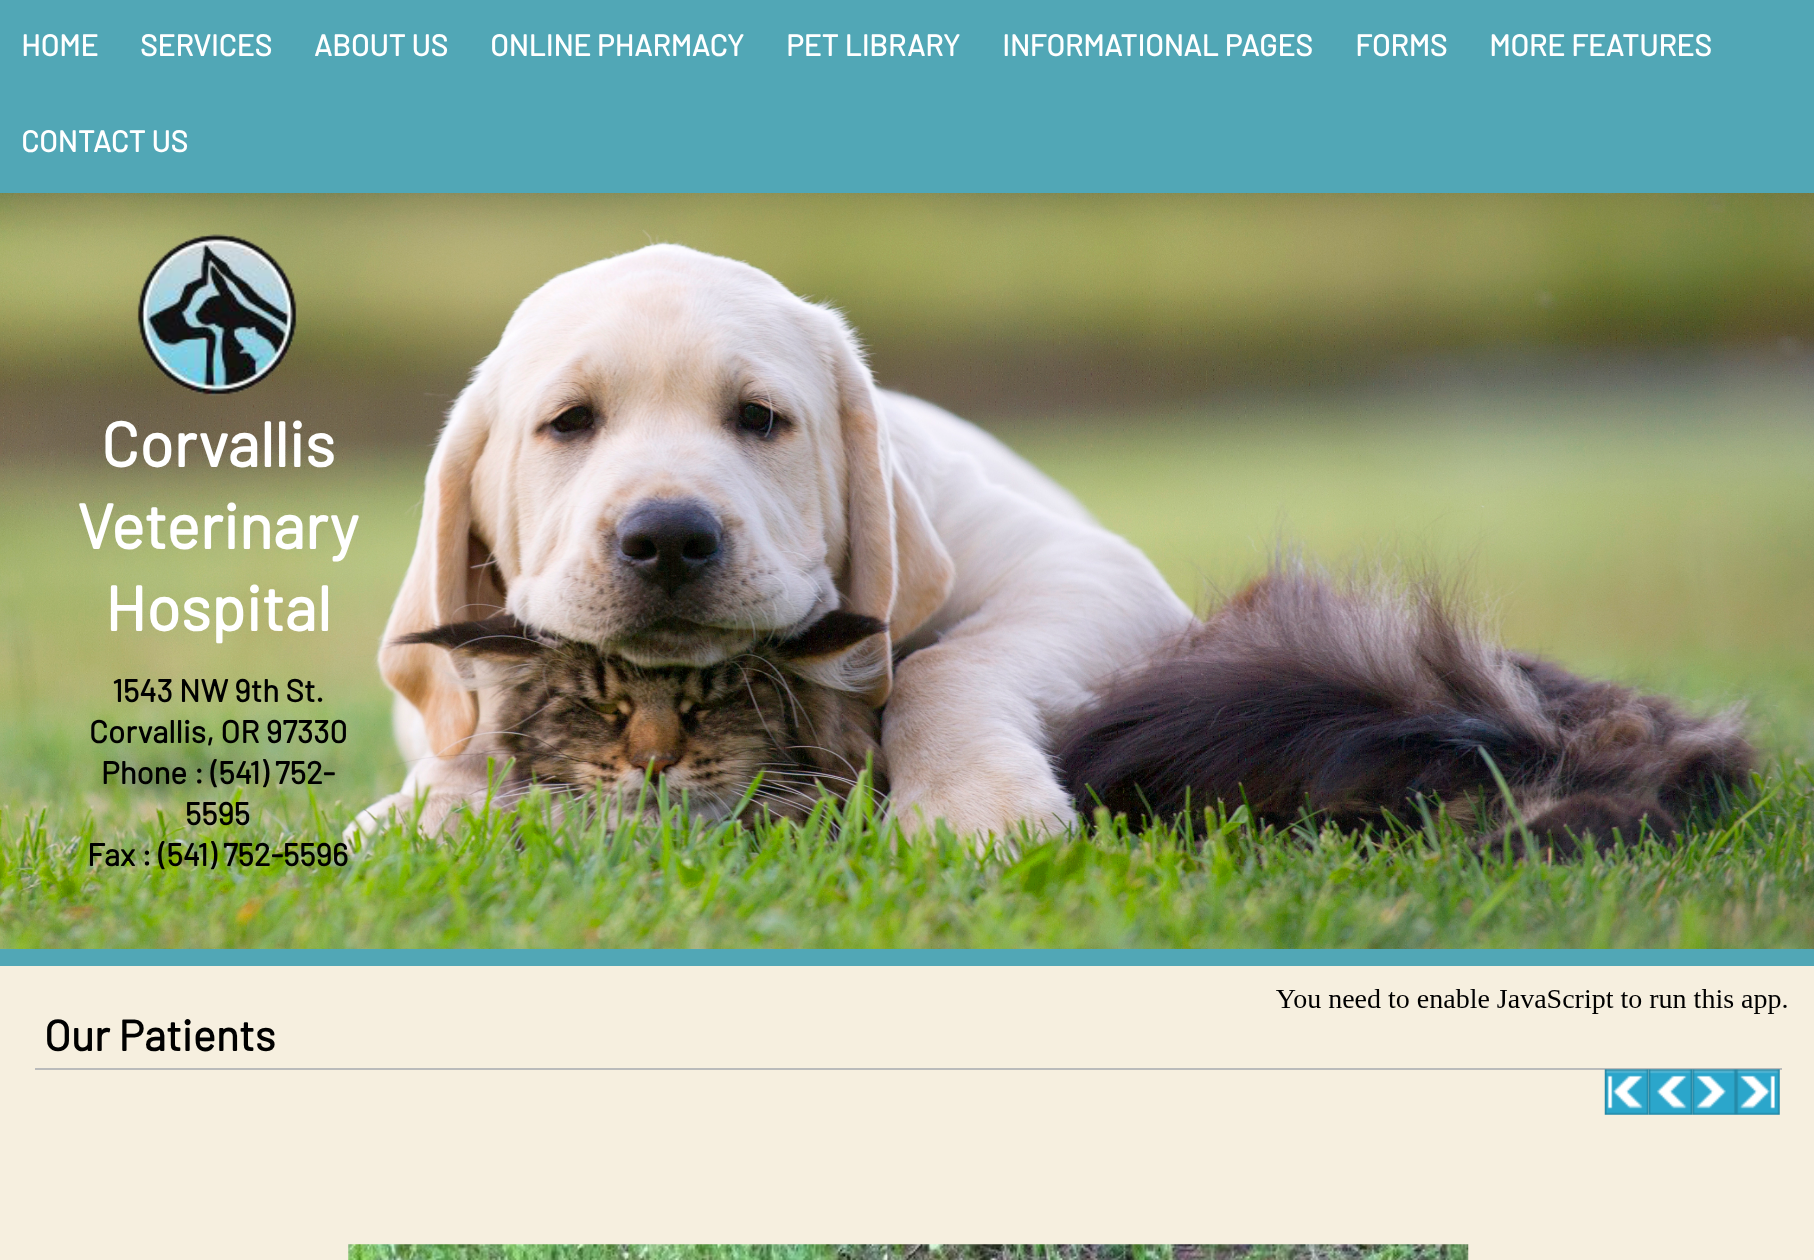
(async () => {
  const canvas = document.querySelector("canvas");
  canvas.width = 1814;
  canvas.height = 1260;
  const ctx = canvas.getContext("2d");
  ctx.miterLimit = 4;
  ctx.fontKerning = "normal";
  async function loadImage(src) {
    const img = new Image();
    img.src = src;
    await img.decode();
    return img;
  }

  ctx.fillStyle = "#ffffff";
  ctx.fillRect(0, 0, 1814, 1260);
  ctx.drawImage(await loadImage("img/1.png"), 0, 193, 1814, 756);
  ctx.fillStyle = "#51a7b6";
  ctx.fillRect(0, 0, 1814, 193);
  ctx.drawImage(await loadImage("img/2.png"), 137, 234, 161, 162);
  for (const [x, y, w, h, color] of [
    [0, 966, 1814, 294, "#f6efdf"],
    [0, 949, 1814, 17, "#51a7b6"],
    [35, 1068, 1747, 2, "#babbbb"],
  ]) {
    ctx.fillStyle = color;
    ctx.fillRect(x, y, w, h);
  }
  ctx.drawImage(await loadImage("img/3.png"), 1604, 1069, 45, 46);
  ctx.drawImage(await loadImage("img/4.png"), 1648, 1069, 45, 46);
  ctx.drawImage(await loadImage("img/5.png"), 1692, 1069, 44, 46);
  ctx.drawImage(await loadImage("img/6.png"), 1736, 1069, 44, 46);
  ctx.drawImage(await loadImage("img/7.png"), 348, 1244, 1121, 16);
  ctx.drawImage(await loadImage("img/8.png"), 1276, 989, 511, 25);
  ctx.font = "bold 29.75px Barlow";
  ctx.fillStyle = "#ffffff";
  for (const [text, x, y] of [
    ["HOME", 21, 56],
    ["SERVICES", 140, 56],
    ["ABOUT US", 314, 56],
    ["ONLINE PHARMACY", 490, 56],
    ["PET LIBRARY", 786, 56],
    ["INFORMATIONAL PAGES", 1002, 56],
    ["FORMS", 1355, 56],
    ["MORE FEATURES", 1489, 56],
    ["CONTACT US", 21, 152],
  ]) {
    ctx.fillText(text, x, y);
  }
  ctx.font = "bold 63px Barlow";
  for (const [text, x, y] of [
    ["Corvallis", 101, 467],
    ["Veterinary", 77, 549],
    ["Hospital", 105, 631],
  ]) {
    ctx.fillText(text, x, y);
  }
  ctx.font = "bold 31.5px Barlow";
  ctx.fillStyle = "#000000";
  for (const [text, x, y] of [
    ["1543 NW 9th St.", 112, 702],
    ["Corvallis, OR 97330", 89, 743],
    ["Phone : (541) 752-", 101, 784],
    ["5595", 185, 825],
    ["Fax : (541) 752-5596", 87, 866],
  ]) {
    ctx.fillText(text, x, y);
  }
  ctx.font = "bold 43.25px Barlow";
  ctx.fillText("Our Patients", 44, 1051);
})();
